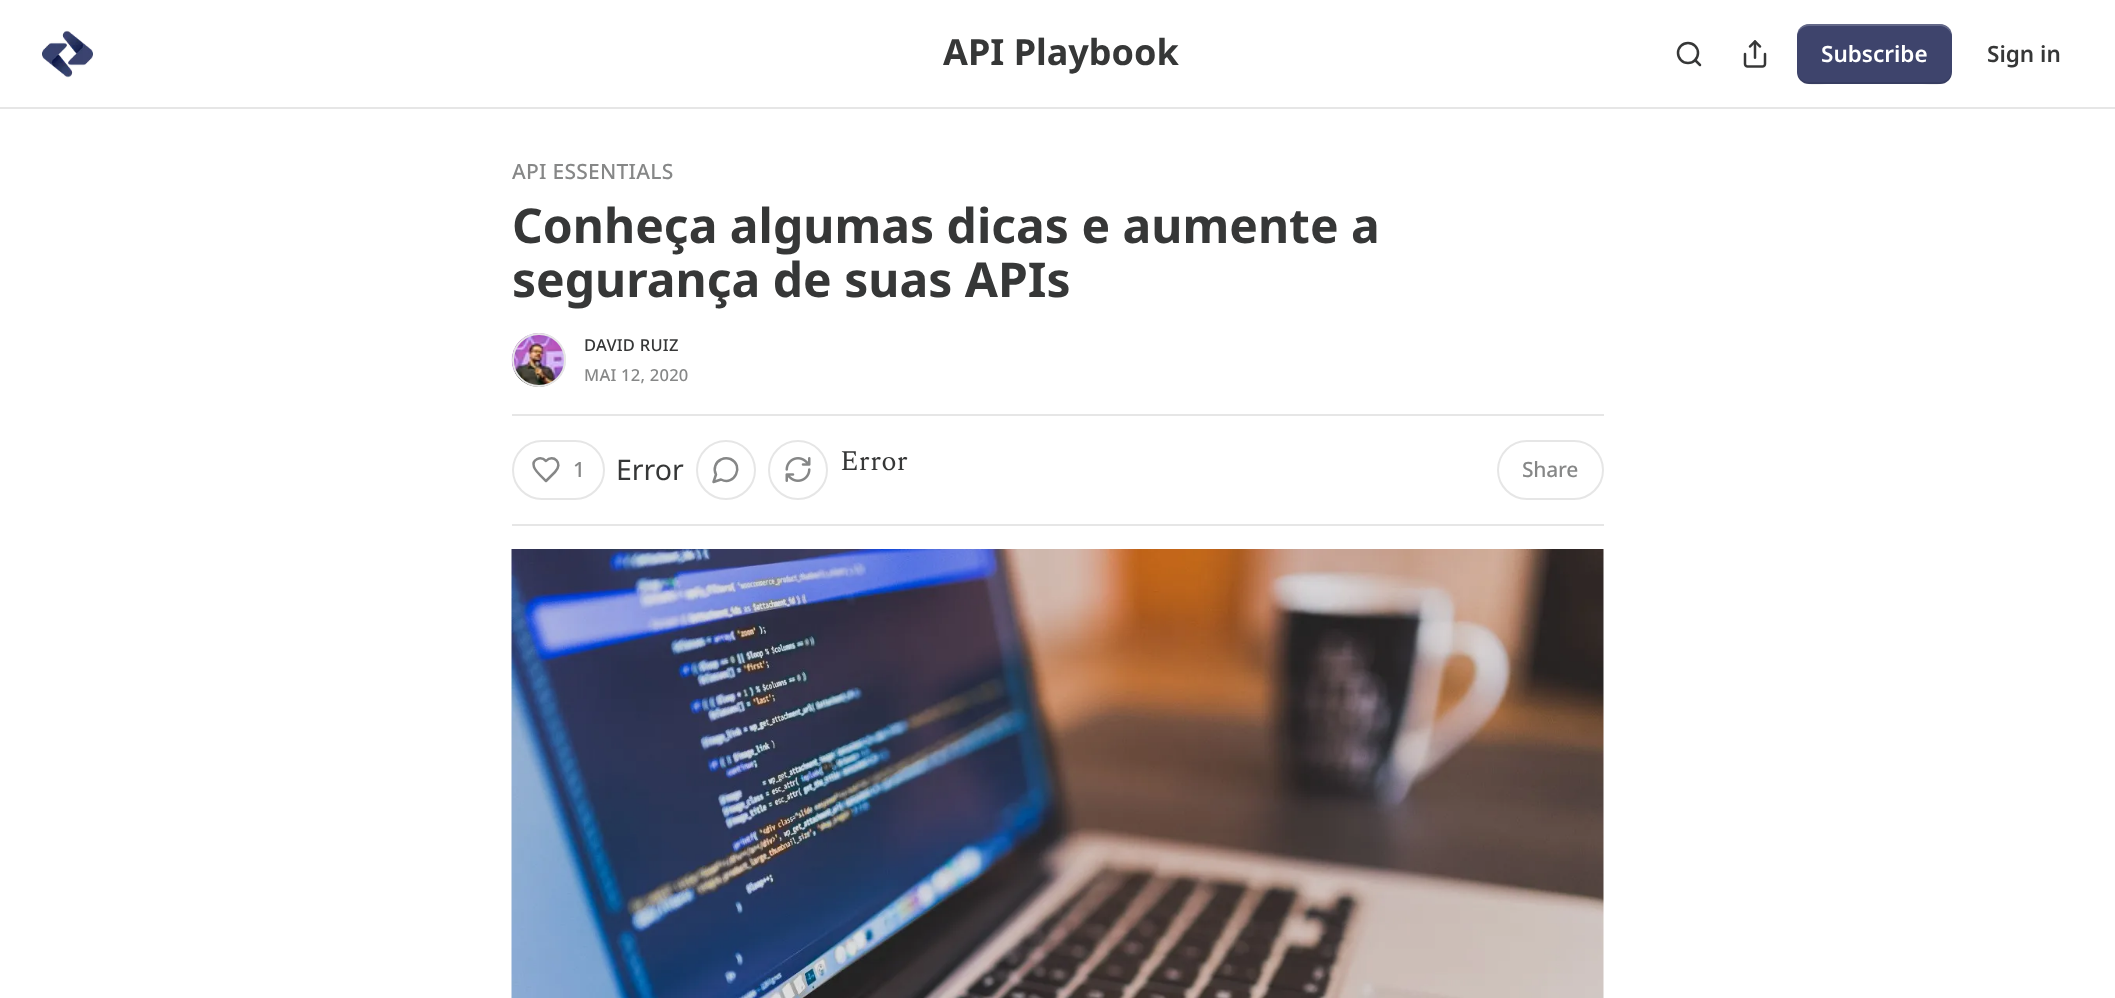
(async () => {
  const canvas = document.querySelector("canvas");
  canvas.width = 2115;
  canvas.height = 998;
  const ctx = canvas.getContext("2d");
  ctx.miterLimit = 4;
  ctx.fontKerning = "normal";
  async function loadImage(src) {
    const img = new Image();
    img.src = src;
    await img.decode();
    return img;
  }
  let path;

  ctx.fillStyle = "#ffffff";
  ctx.fillRect(0, 0, 2115, 998);
  ctx.fillStyle = "#e6e6e6";
  ctx.fillRect(0, 107, 2115, 2);
  ctx.drawImage(await loadImage("img/1.png"), 42, 30, 51, 48);
  ctx.beginPath();
  ctx.arc(1688, 53, 10, 0, Math.PI * 2);
  ctx.strokeStyle = "#363737";
  ctx.lineWidth = 2.5;
  ctx.stroke();
  path = new Path2D("M1700 65L1695 60");
  ctx.lineCap = "round";
  ctx.lineJoin = "round";
  ctx.stroke(path);
  ctx.drawImage(await loadImage("img/2.png"), 1743, 40, 24, 28);
  ctx.fillStyle = "#3e446c";
  ctx.beginPath();
  ctx.roundRect(1797, 24, 155, 60, 12);
  ctx.fill();
  ctx.fillStyle = "rgba(0, 0, 0, 0.1)";
  path = new Path2D("M1797 70C1797 89 1817 84 1831 84H1918C1932 84 1952 89 1952 70C1952 77 1946 82 1940 82H1809C1802 82 1797 77 1797 70Z");
  ctx.fill(path);
  ctx.fillStyle = "rgba(255, 255, 255, 0.2)";
  path = new Path2D("M1809 26H1940C1946 26 1952 31 1952 38C1952 19 1932 24 1918 24H1831C1817 24 1797 19 1797 38C1797 31 1802 26 1809 26Z");
  ctx.fill(path);
  ctx.beginPath();
  ctx.arc(539, 360, 26, 0, Math.PI * 2);
  ctx.strokeStyle = "#e6e6e6";
  ctx.lineWidth = 2;
  ctx.stroke();
  ctx.drawImage(await loadImage("img/3.png"), 511, 333, 55, 54);
  ctx.beginPath();
  ctx.arc(539, 360, 26, 0, Math.PI * 2);
  ctx.stroke();
  ctx.fillStyle = "#e6e6e6";
  ctx.fillRect(512, 414, 1092, 2);
  ctx.fillRect(512, 524, 1092, 2);
  ctx.beginPath();
  ctx.roundRect(513, 441, 91, 58, 29);
  ctx.lineJoin = "miter";
  ctx.stroke();
  path = new Path2D("M555 472C564 463 553 453.5 546 461C540.5 455.5 531.5 459.5 534 467C535 471 543 478 546 481Z");
  ctx.strokeStyle = "#868787";
  ctx.lineWidth = 2.5;
  ctx.lineJoin = "round";
  ctx.stroke(path);
  ctx.beginPath();
  ctx.arc(726, 470, 29, 0, Math.PI * 2);
  ctx.strokeStyle = "#e6e6e6";
  ctx.lineWidth = 2;
  ctx.stroke();
  path = new Path2D("M721 479.5C734.5 486.5 744.5 465.5 730.5 459C727.5 458 724 458 721 459.5C715.5 462 713 469 716 474.5L713.5 482Z");
  ctx.strokeStyle = "#868787";
  ctx.lineWidth = 2.5;
  ctx.stroke(path);
  ctx.beginPath();
  ctx.arc(798, 470, 29, 0, Math.PI * 2);
  ctx.strokeStyle = "#e6e6e6";
  ctx.lineWidth = 2;
  ctx.stroke();
  ctx.drawImage(await loadImage("img/4.png"), 785, 457, 26, 25);
  ctx.beginPath();
  ctx.roundRect(1498, 441, 105, 58, 29);
  ctx.lineJoin = "miter";
  ctx.stroke();
  ctx.drawImage(await loadImage("img/5.png"), 511, 549, 1093, 449);
  ctx.font = "bold 36px Noto Sans";
  ctx.fillStyle = "#363737";
  ctx.fillText("API Playbook", 943, 65);
  ctx.font = "600 22.5px Noto Sans";
  ctx.fillStyle = "#ffffff";
  ctx.fillText("Subscribe", 1821, 62);
  ctx.fillStyle = "#363737";
  ctx.fillText("Sign in", 1987, 62);
  ctx.letterSpacing = "0.25px";
  ctx.font = "500 21px Noto Sans";
  ctx.fillStyle = "#868787";
  ctx.fillText("API ESSENTIALS", 512, 179);
  ctx.letterSpacing = "0px";
  ctx.font = "bold 48px Noto Sans";
  ctx.fillStyle = "#363737";
  ctx.fillText("Conheça algumas dicas e aumente a", 512, 243);
  ctx.fillText("segurança de suas APIs", 512, 297);
  ctx.letterSpacing = "0.25px";
  ctx.font = "500 16.5px Noto Sans";
  ctx.fillText("DAVID RUIZ", 584, 351);
  ctx.fillStyle = "#868787";
  ctx.fillText("MAI 12, 2020", 584, 381);
  ctx.letterSpacing = "-0.25px";
  ctx.font = "500 21px Noto Sans";
  ctx.fillText("1", 573, 477);
  ctx.letterSpacing = "0px";
  ctx.font = "28.5px Noto Sans";
  ctx.fillStyle = "#363737";
  ctx.fillText("Error", 616, 480);
  ctx.font = "28.5px Spectral";
  ctx.fillText("Error", 840, 470);
  ctx.letterSpacing = "-0.25px";
  ctx.font = "500 21px Noto Sans";
  ctx.fillStyle = "#868787";
  ctx.fillText("Share", 1522, 477);
})();
